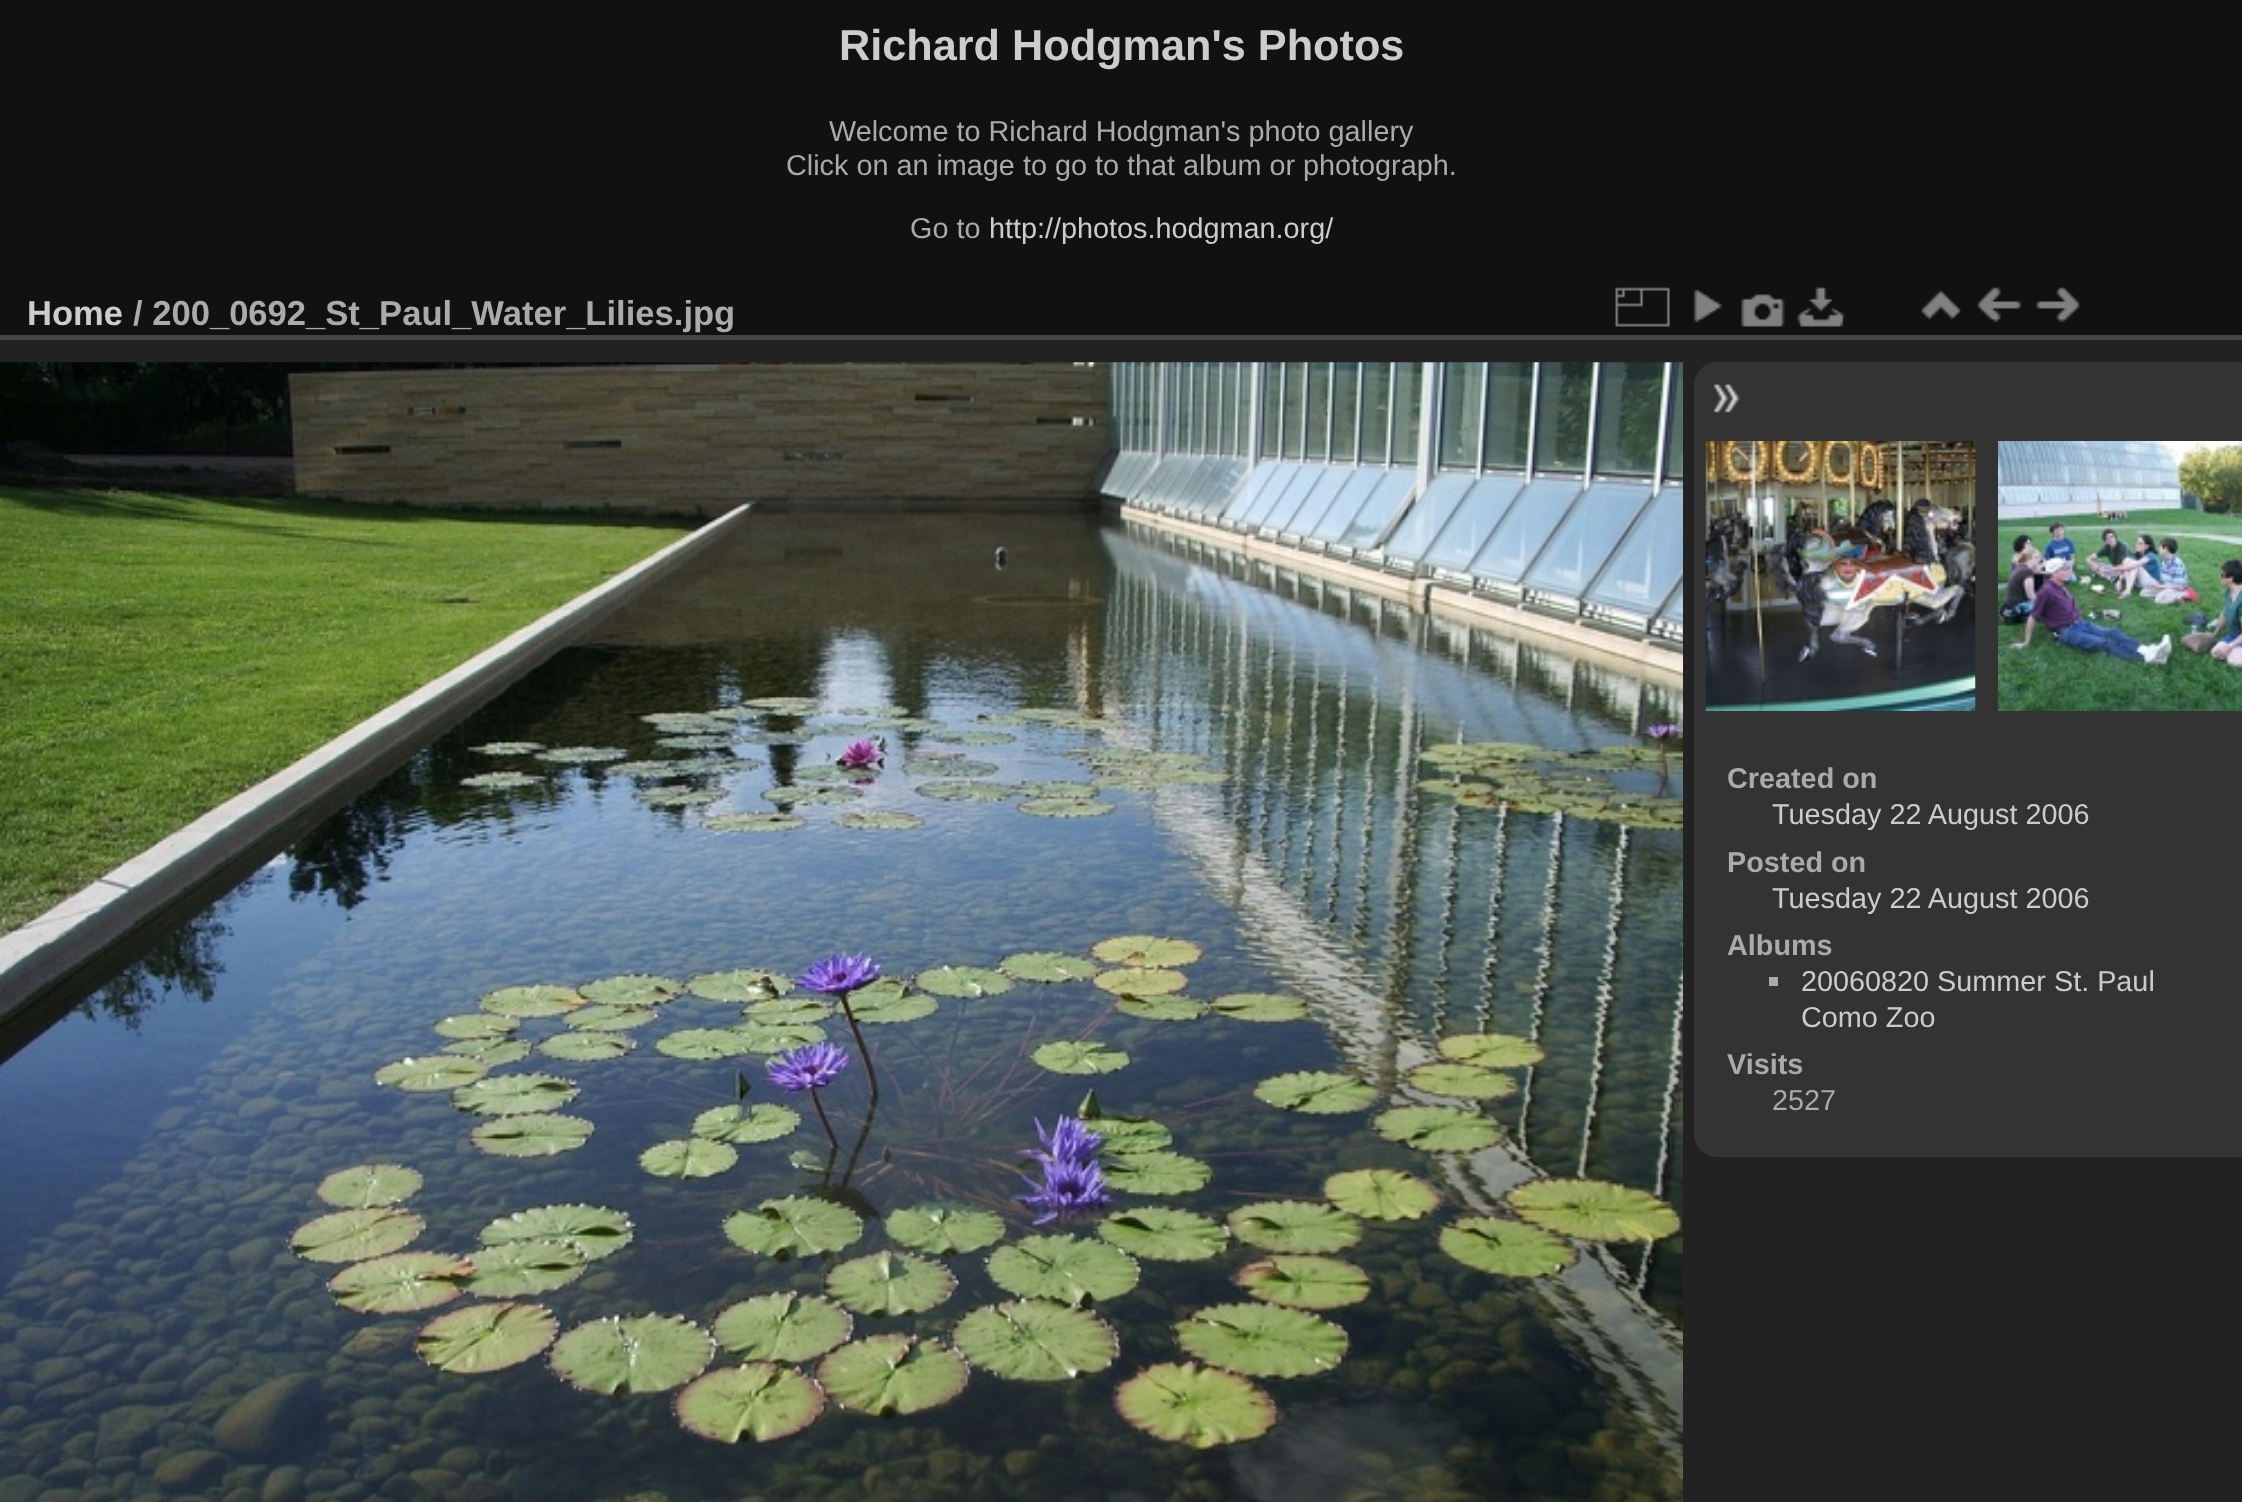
(async () => {
  const canvas = document.querySelector("canvas");
  canvas.width = 2242;
  canvas.height = 1502;
  const ctx = canvas.getContext("2d");
  ctx.miterLimit = 4;
  ctx.fontKerning = "normal";
  async function loadImage(src) {
    const img = new Image();
    img.src = src;
    await img.decode();
    return img;
  }
  let path;

  ctx.fillStyle = "#111111";
  ctx.fillRect(0, 0, 2242, 1502);
  ctx.fillStyle = "#222222";
  ctx.fillRect(0, 340, 2242, 1162);
  ctx.fillStyle = "#444444";
  ctx.fillRect(0, 335, 2242, 5);
  ctx.drawImage(await loadImage("img/1.png"), 1615, 287, 55, 40);
  ctx.drawImage(await loadImage("img/2.png"), 1693, 289, 29, 34);
  ctx.drawImage(await loadImage("img/3.png"), 1741, 294, 44, 33);
  ctx.drawImage(await loadImage("img/4.png"), 1797, 287, 49, 40);
  ctx.drawImage(await loadImage("img/5.png"), 1921, 289, 40, 31);
  ctx.drawImage(await loadImage("img/6.png"), 1977, 287, 45, 36);
  ctx.drawImage(await loadImage("img/7.png"), 2035, 287, 45, 36);
  ctx.drawImage(await loadImage("img/8.png"), 0, 362, 1683, 1140);
  ctx.fillStyle = "#333333";
  path = new Path2D("M1717 362H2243V1157H1717C1704.5 1157 1694 1146.5 1694 1134V385C1694 372.5 1704.5 362 1717 362Z");
  ctx.fill(path);
  ctx.drawImage(await loadImage("img/9.png"), 1713, 384, 27, 29);
  ctx.drawImage(await loadImage("img/10.png"), 1705, 441, 271, 270);
  ctx.drawImage(await loadImage("img/11.png"), 1998, 441, 244, 270);
  ctx.fillStyle = "#aaaaaa";
  ctx.fillRect(1769, 977, 9, 9);
  ctx.font = "bold 43.25px Liberation Sans";
  ctx.fillStyle = "#cccccc";
  ctx.fillText("Richard Hodgman's Photos", 839, 60);
  ctx.font = "28.8px Liberation Sans";
  ctx.fillStyle = "#aaaaaa";
  for (const [text, x, y] of [
    ["Welcome to Richard Hodgman's photo gallery", 829, 141],
    ["Click on an image to go to that album or photograph.", 786, 175],
    ["Go to", 910, 238],
  ]) {
    ctx.fillText(text, x, y);
  }
  ctx.fillStyle = "#cccccc";
  ctx.fillText("http://photos.hodgman.org/", 989, 238);
  ctx.font = "bold 34.6px Liberation Sans";
  ctx.fillText("Home", 27, 325);
  ctx.fillStyle = "#aaaaaa";
  ctx.fillText("/ 200_0692_St_Paul_Water_Lilies.jpg", 133, 325);
  ctx.font = "bold 28.8px Liberation Sans";
  ctx.fillText("Created on", 1727, 788);
  ctx.font = "28.8px Liberation Sans";
  ctx.fillStyle = "#cccccc";
  ctx.fillText("Tuesday 22 August 2006", 1772, 824);
  ctx.font = "bold 28.8px Liberation Sans";
  ctx.fillStyle = "#aaaaaa";
  ctx.fillText("Posted on", 1727, 872);
  ctx.font = "28.8px Liberation Sans";
  ctx.fillStyle = "#cccccc";
  ctx.fillText("Tuesday 22 August 2006", 1772, 908);
  ctx.font = "bold 28.8px Liberation Sans";
  ctx.fillStyle = "#aaaaaa";
  ctx.fillText("Albums", 1727, 955);
  ctx.font = "28.8px Liberation Sans";
  ctx.fillStyle = "#cccccc";
  ctx.fillText("20060820 Summer St. Paul", 1801, 991);
  ctx.fillText("Como Zoo", 1801, 1027);
  ctx.font = "bold 28.8px Liberation Sans";
  ctx.fillStyle = "#aaaaaa";
  ctx.fillText("Visits", 1727, 1074);
  ctx.font = "28.8px Liberation Sans";
  ctx.fillText("2527", 1772, 1110);
})();
